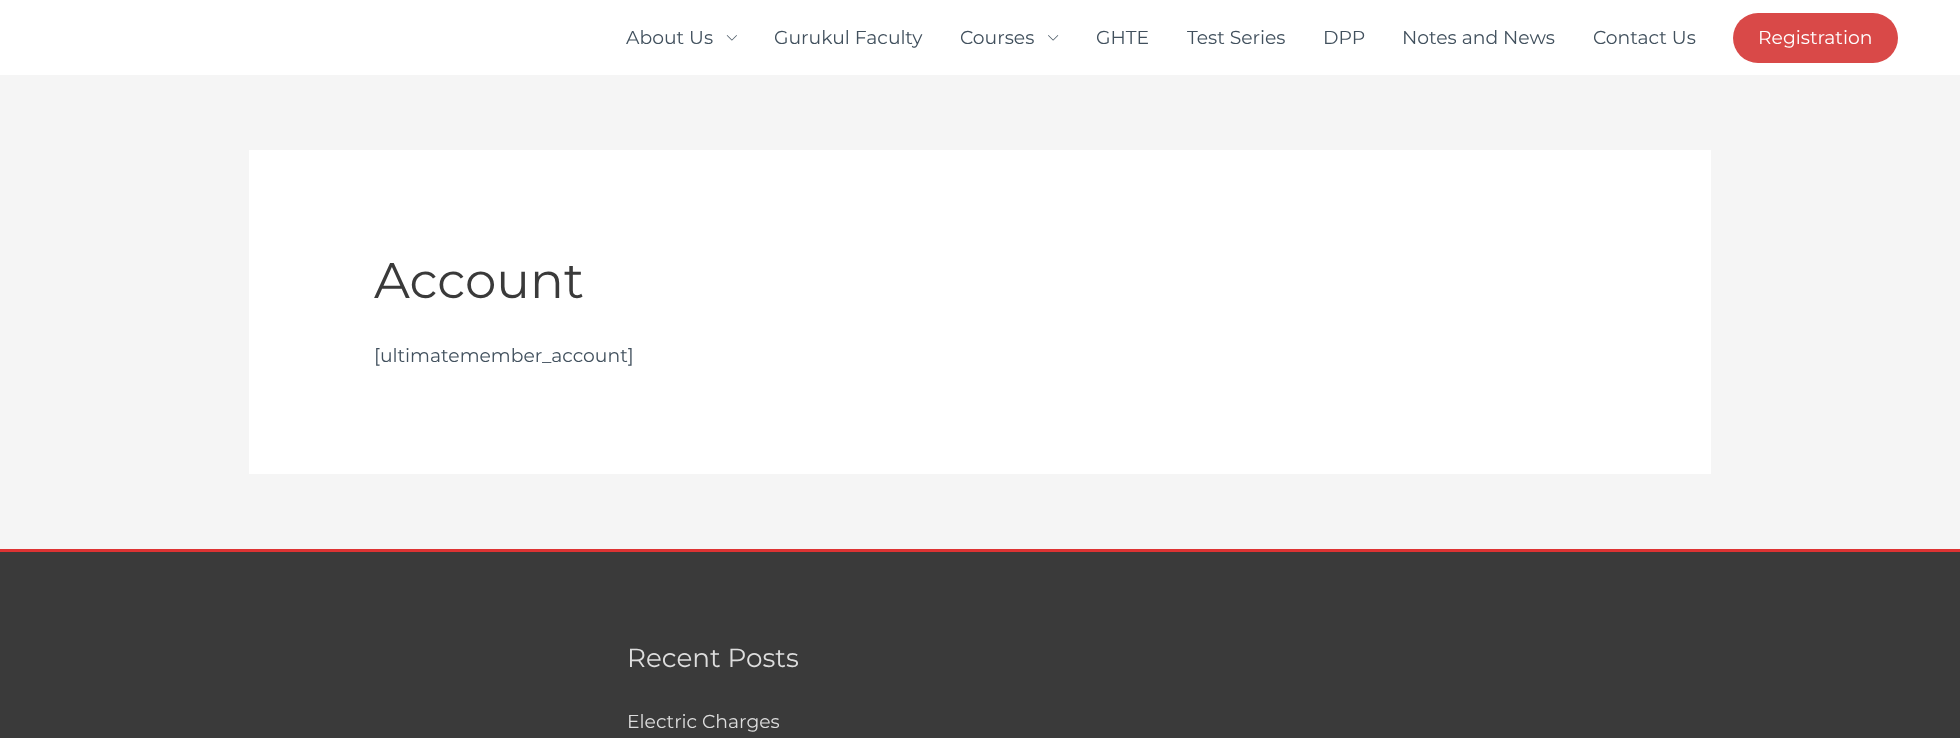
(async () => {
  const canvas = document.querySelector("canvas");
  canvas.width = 1960;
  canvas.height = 738;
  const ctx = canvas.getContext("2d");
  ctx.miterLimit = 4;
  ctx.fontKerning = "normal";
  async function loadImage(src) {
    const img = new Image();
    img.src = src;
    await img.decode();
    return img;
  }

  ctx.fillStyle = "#f5f5f5";
  ctx.fillRect(0, 0, 1960, 738);
  ctx.fillStyle = "#ffffff";
  ctx.fillRect(0, 0, 1960, 75);
  ctx.drawImage(await loadImage("img/1.png"), 726, 35, 11, 6);
  ctx.drawImage(await loadImage("img/2.png"), 1048, 35, 11, 6);
  ctx.fillStyle = "#d94948";
  ctx.beginPath();
  ctx.roundRect(1733, 13, 165, 50, 25);
  ctx.fill();
  for (const [x, y, w, h, color] of [
    [249, 150, 1462, 324, "#ffffff"],
    [0, 552, 1960, 186, "#3a3a3a"],
    [0, 549, 1960, 3, "#dd3333"],
  ]) {
    ctx.fillStyle = color;
    ctx.fillRect(x, y, w, h);
  }
  ctx.font = "18.75px Montserrat";
  ctx.fillStyle = "#41505d";
  for (const [text, x, y] of [
    ["About Us", 626, 44],
    ["Gurukul Faculty", 774, 44],
    ["Courses", 960, 44],
    ["GHTE", 1096, 44],
    ["Test Series", 1187, 44],
    ["DPP", 1323, 44],
    ["Notes and News", 1402, 44],
    ["Contact Us", 1593, 44],
  ]) {
    ctx.fillText(text, x, y);
  }
  ctx.fillStyle = "#ffffff";
  ctx.fillText("Registration", 1758, 44);
  ctx.font = "50px Montserrat";
  ctx.fillStyle = "#3a3a3a";
  ctx.fillText("Account", 374, 298);
  ctx.font = "18.75px Montserrat";
  ctx.fillStyle = "#41505d";
  ctx.fillText("[ultimatemember_account]", 374, 362);
  ctx.font = "26.25px Montserrat";
  ctx.fillStyle = "#dddddd";
  ctx.fillText("Recent Posts", 627, 667);
  ctx.font = "18.75px Montserrat";
  ctx.fillText("Electric Charges", 627, 728);
})();
